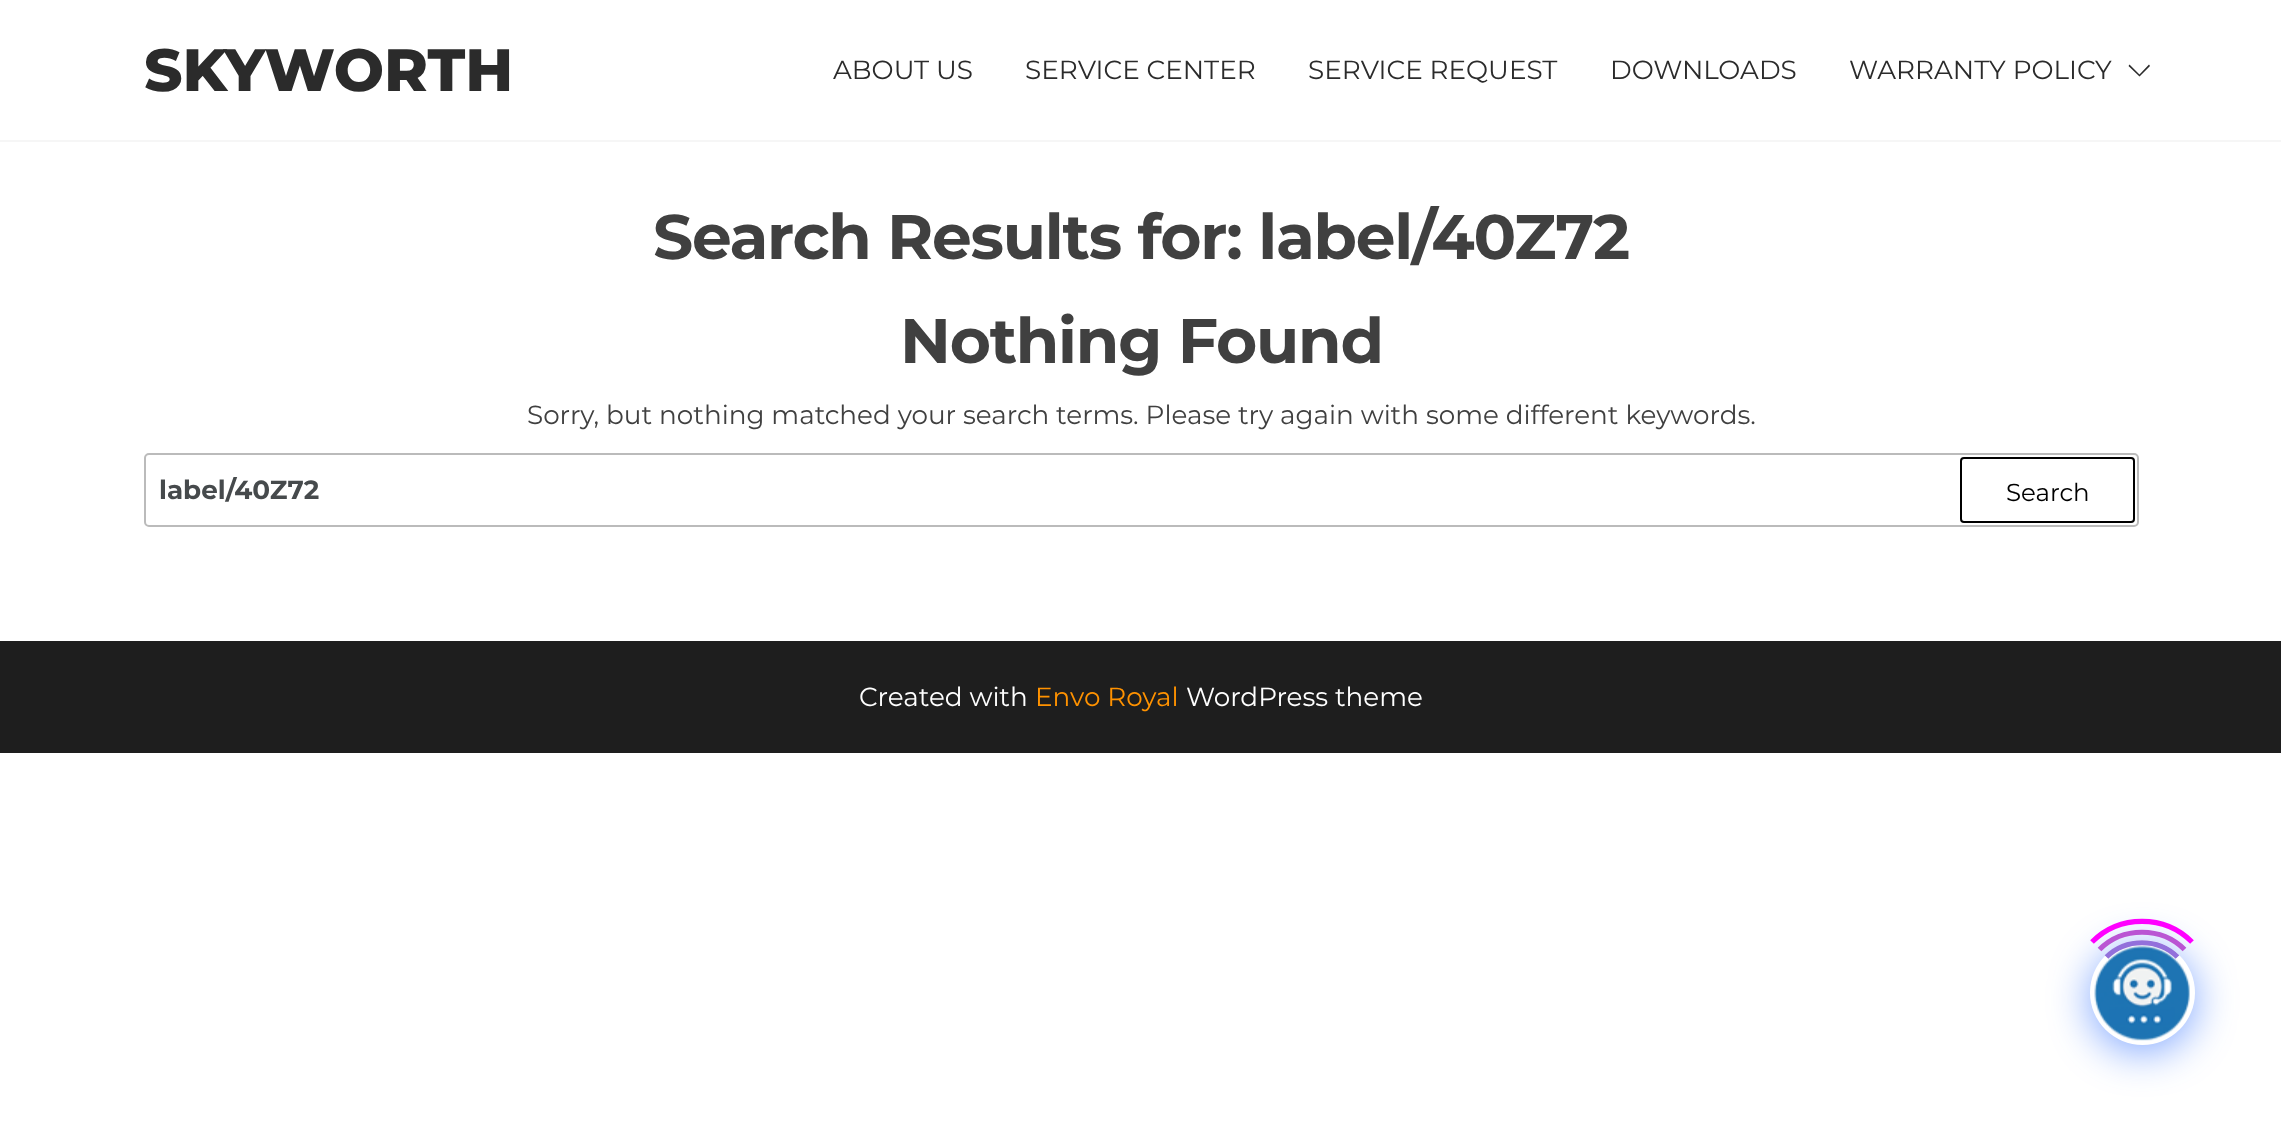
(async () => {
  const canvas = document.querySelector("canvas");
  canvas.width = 2281;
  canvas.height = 1131;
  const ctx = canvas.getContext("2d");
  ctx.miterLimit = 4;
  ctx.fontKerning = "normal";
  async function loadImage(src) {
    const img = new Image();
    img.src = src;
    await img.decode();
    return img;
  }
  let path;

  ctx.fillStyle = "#ffffff";
  ctx.fillRect(0, 0, 2281, 1131);
  ctx.fillStyle = "#f6f6f6";
  ctx.fillRect(0, 140, 2281, 2);
  ctx.fillStyle = "#2b2b2b";
  path = new Path2D("M2129.5 64.5L2128.5 66L2139.5 76.5L2150 66L2149 64.5L2139.5 74.5Z");
  ctx.fill(path);
  ctx.beginPath();
  ctx.roundRect(145, 454, 1993, 72, 4);
  ctx.strokeStyle = "#bbbbbb";
  ctx.lineWidth = 2;
  ctx.stroke();
  ctx.beginPath();
  ctx.roundRect(1961, 458, 173, 64, 3);
  ctx.strokeStyle = "#000000";
  ctx.stroke();
  ctx.fillStyle = "#1e1e1e";
  ctx.fillRect(0, 641, 2281, 112);
  ctx.fillStyle = "rgba(0, 77, 255, 0.5)";
  ctx.filter = "blur(21px)";
  ctx.beginPath();
  ctx.roundRect(2090, 947, 105, 105, 52.5);
  ctx.fill();
  ctx.filter = "none";
  ctx.fillStyle = "#ffffff";
  ctx.beginPath();
  ctx.arc(2142.5, 992.5, 52.5, 0, Math.PI * 2);
  ctx.fill();
  ctx.drawImage(await loadImage("img/1.png"), 2094, 945, 96, 96);
  path = new Path2D("M2106.5 957C2126 938 2158 938 2177.5 957");
  ctx.strokeStyle = "#9370db";
  ctx.lineWidth = 5.2;
  ctx.stroke(path);
  path = new Path2D("M2099.5 949.5C2122.5 926.5 2161.5 926.5 2184.5 949.5");
  ctx.strokeStyle = "#ba55d3";
  ctx.stroke(path);
  path = new Path2D("M2092 942C2119.5 914.5 2164.5 914.5 2192 942");
  ctx.strokeStyle = "#ff00ff";
  ctx.stroke(path);
  ctx.font = "800 59.5px Montserrat";
  ctx.fillStyle = "#2b2b2b";
  ctx.fillText("SKYWORTH", 144, 91);
  ctx.font = "26.25px Montserrat";
  for (const [text, x, y] of [
    ["ABOUT US", 833, 79],
    ["SERVICE CENTER", 1025, 79],
    ["SERVICE REQUEST", 1308, 79],
    ["DOWNLOADS", 1610, 79],
    ["WARRANTY POLICY", 1849, 79],
  ]) {
    ctx.fillText(text, x, y);
  }
  ctx.letterSpacing = "-1.25px";
  ctx.font = "bold 63px Montserrat";
  ctx.fillStyle = "#404040";
  ctx.fillText("Search Results for: label/40Z72", 653, 259);
  ctx.fillText("Nothing Found", 900, 363);
  ctx.letterSpacing = "0px";
  ctx.font = "26.25px Montserrat";
  ctx.fillText("Sorry, but nothing matched your search terms. Please try again with some different keywords.", 527, 424);
  ctx.font = "bold 26.25px Montserrat";
  ctx.fillStyle = "#464a4c";
  ctx.fillText("label/40Z72", 159, 499);
  ctx.font = "24.5px Montserrat";
  ctx.fillStyle = "#000000";
  ctx.fillText("Search", 2006, 501);
  ctx.font = "26.25px Montserrat";
  ctx.fillStyle = "#ffffff";
  ctx.fillText("Created with", 859, 706);
  ctx.fillStyle = "#ff9200";
  ctx.fillText("Envo Royal", 1035, 706);
  ctx.fillStyle = "#ffffff";
  ctx.fillText("WordPress theme", 1186, 706);
})();
